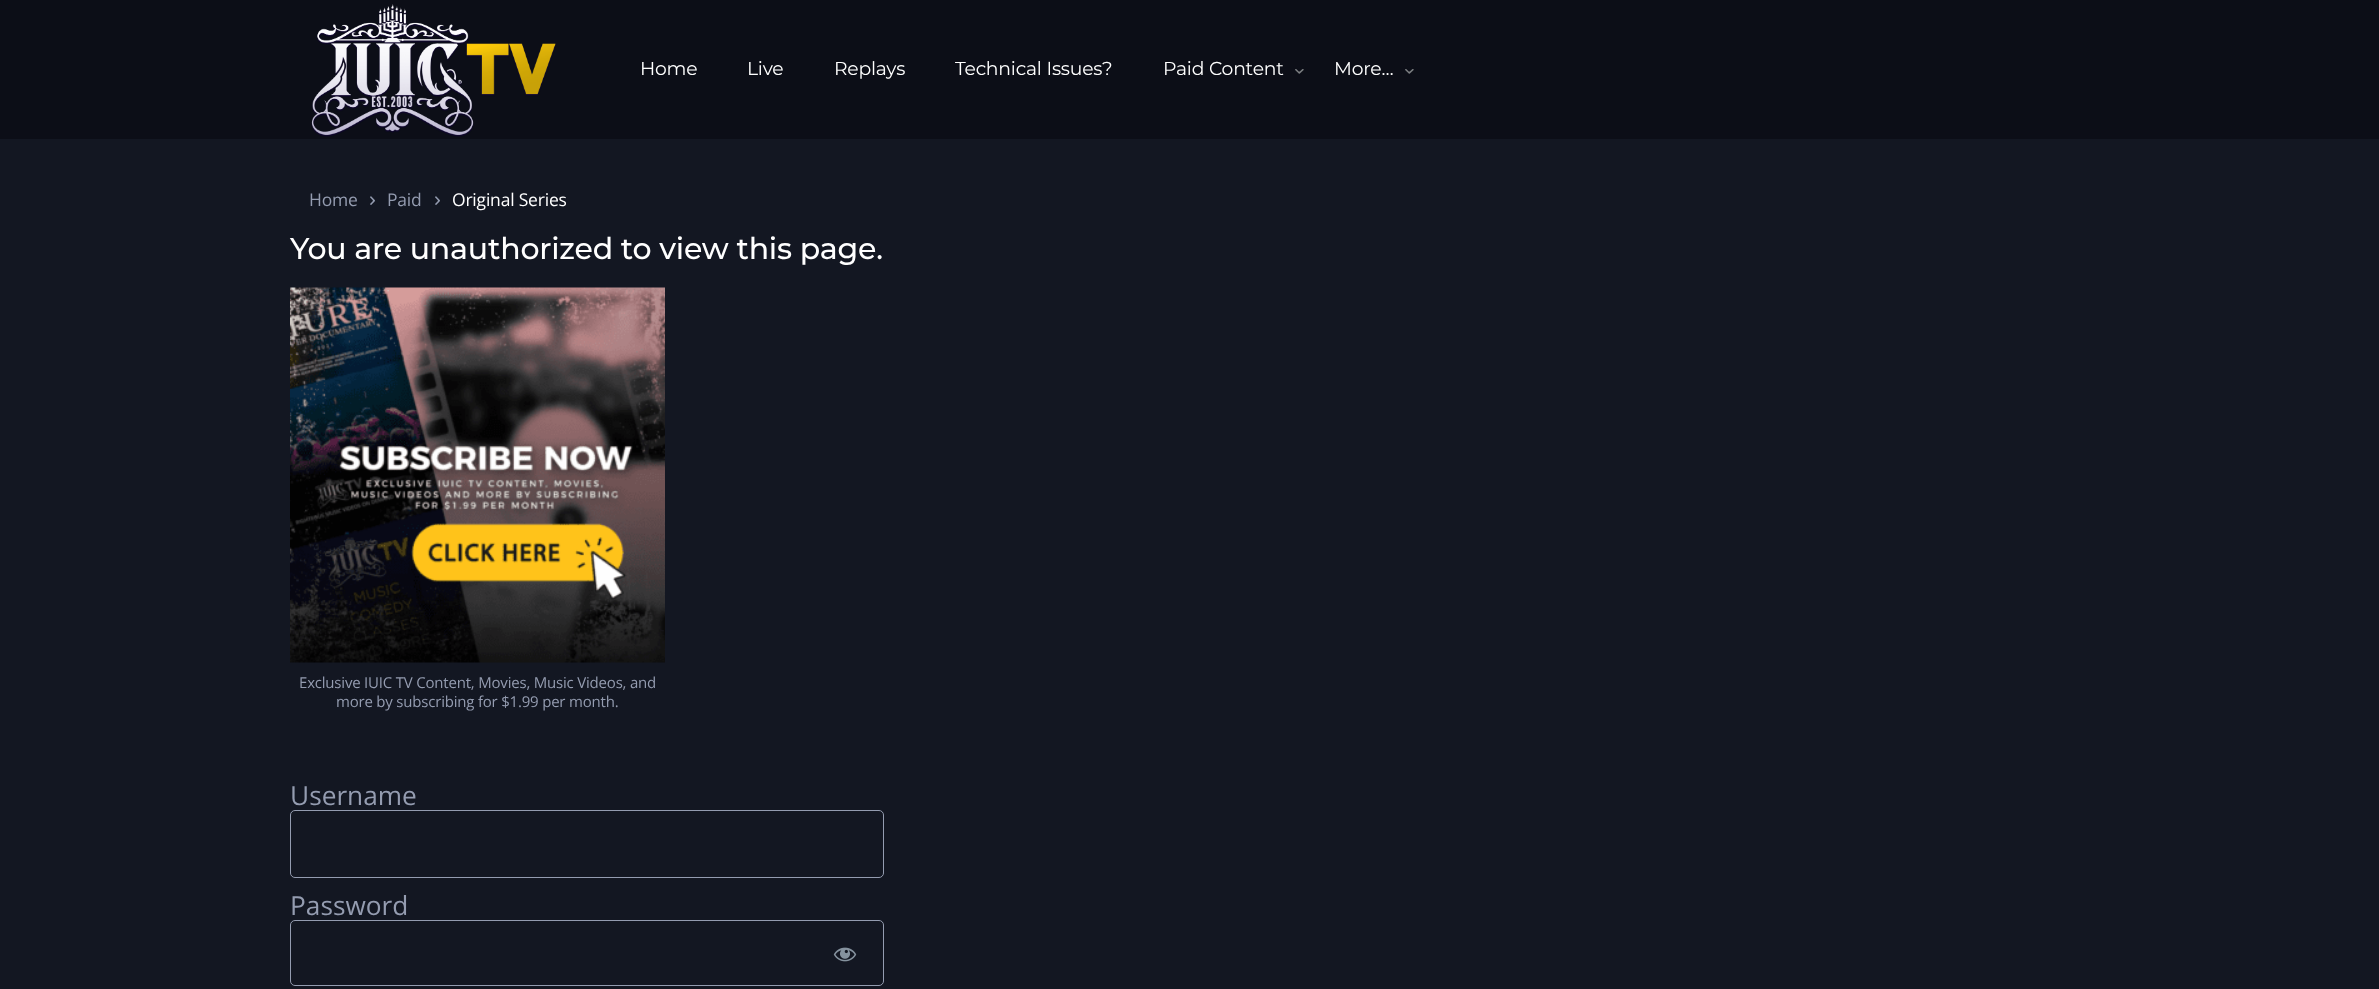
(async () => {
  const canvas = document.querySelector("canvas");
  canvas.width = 2379;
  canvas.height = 989;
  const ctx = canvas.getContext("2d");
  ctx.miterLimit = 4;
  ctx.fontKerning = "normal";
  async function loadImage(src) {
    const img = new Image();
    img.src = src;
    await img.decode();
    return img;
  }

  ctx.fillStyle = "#131722";
  ctx.fillRect(0, 0, 2379, 989);
  ctx.fillStyle = "#0c0e17";
  ctx.fillRect(0, 0, 2379, 139);
  ctx.drawImage(await loadImage("img/1.png"), 311, 4, 245, 133);
  ctx.drawImage(await loadImage("img/2.png"), 1295, 69, 9, 5);
  ctx.drawImage(await loadImage("img/2.png"), 1405, 69, 9, 5);
  ctx.drawImage(await loadImage("img/3.png"), 370, 196, 5, 9);
  ctx.drawImage(await loadImage("img/3.png"), 435, 196, 5, 9);
  ctx.drawImage(await loadImage("img/4.png"), 290, 287, 375, 376);
  ctx.beginPath();
  ctx.roundRect(290.5, 810.5, 593, 67, 4.5);
  ctx.strokeStyle = "#949cb0";
  ctx.stroke();
  ctx.beginPath();
  ctx.roundRect(290.5, 920.5, 593, 65, 4.5);
  ctx.stroke();
  ctx.drawImage(await loadImage("img/5.png"), 833, 947, 24, 15);
  ctx.letterSpacing = "-0.2px";
  ctx.font = "18.75px Montserrat";
  ctx.fillStyle = "#ffffff";
  for (const [text, x, y] of [
    ["Home", 640, 75],
    ["Live", 747, 75],
    ["Replays", 834, 75],
    ["Technical Issues?", 955, 75],
    ["Paid Content", 1163, 75],
    ["More…", 1334, 75],
  ]) {
    ctx.fillText(text, x, y);
  }
  ctx.font = "17.5px Open Sans";
  ctx.fillStyle = "#949cb0";
  ctx.fillText("Home", 309, 206);
  ctx.fillText("Paid", 387, 206);
  ctx.fillStyle = "#ffffff";
  ctx.fillText("Original Series", 452, 206);
  ctx.font = "500 30px Montserrat";
  ctx.fillText("You are unauthorized to view this page.", 290, 259);
  ctx.font = "15px Open Sans";
  ctx.fillStyle = "#949cb0";
  ctx.fillText("Exclusive IUIC TV Content, Movies, Music Videos, and", 299, 688);
  ctx.fillText("more by subscribing for $1.99 per month.", 336, 707);
  ctx.letterSpacing = "0px";
  ctx.font = "26.25px Open Sans";
  ctx.fillText("Username", 290, 805);
  ctx.fillText("Password", 290, 915);
})();
